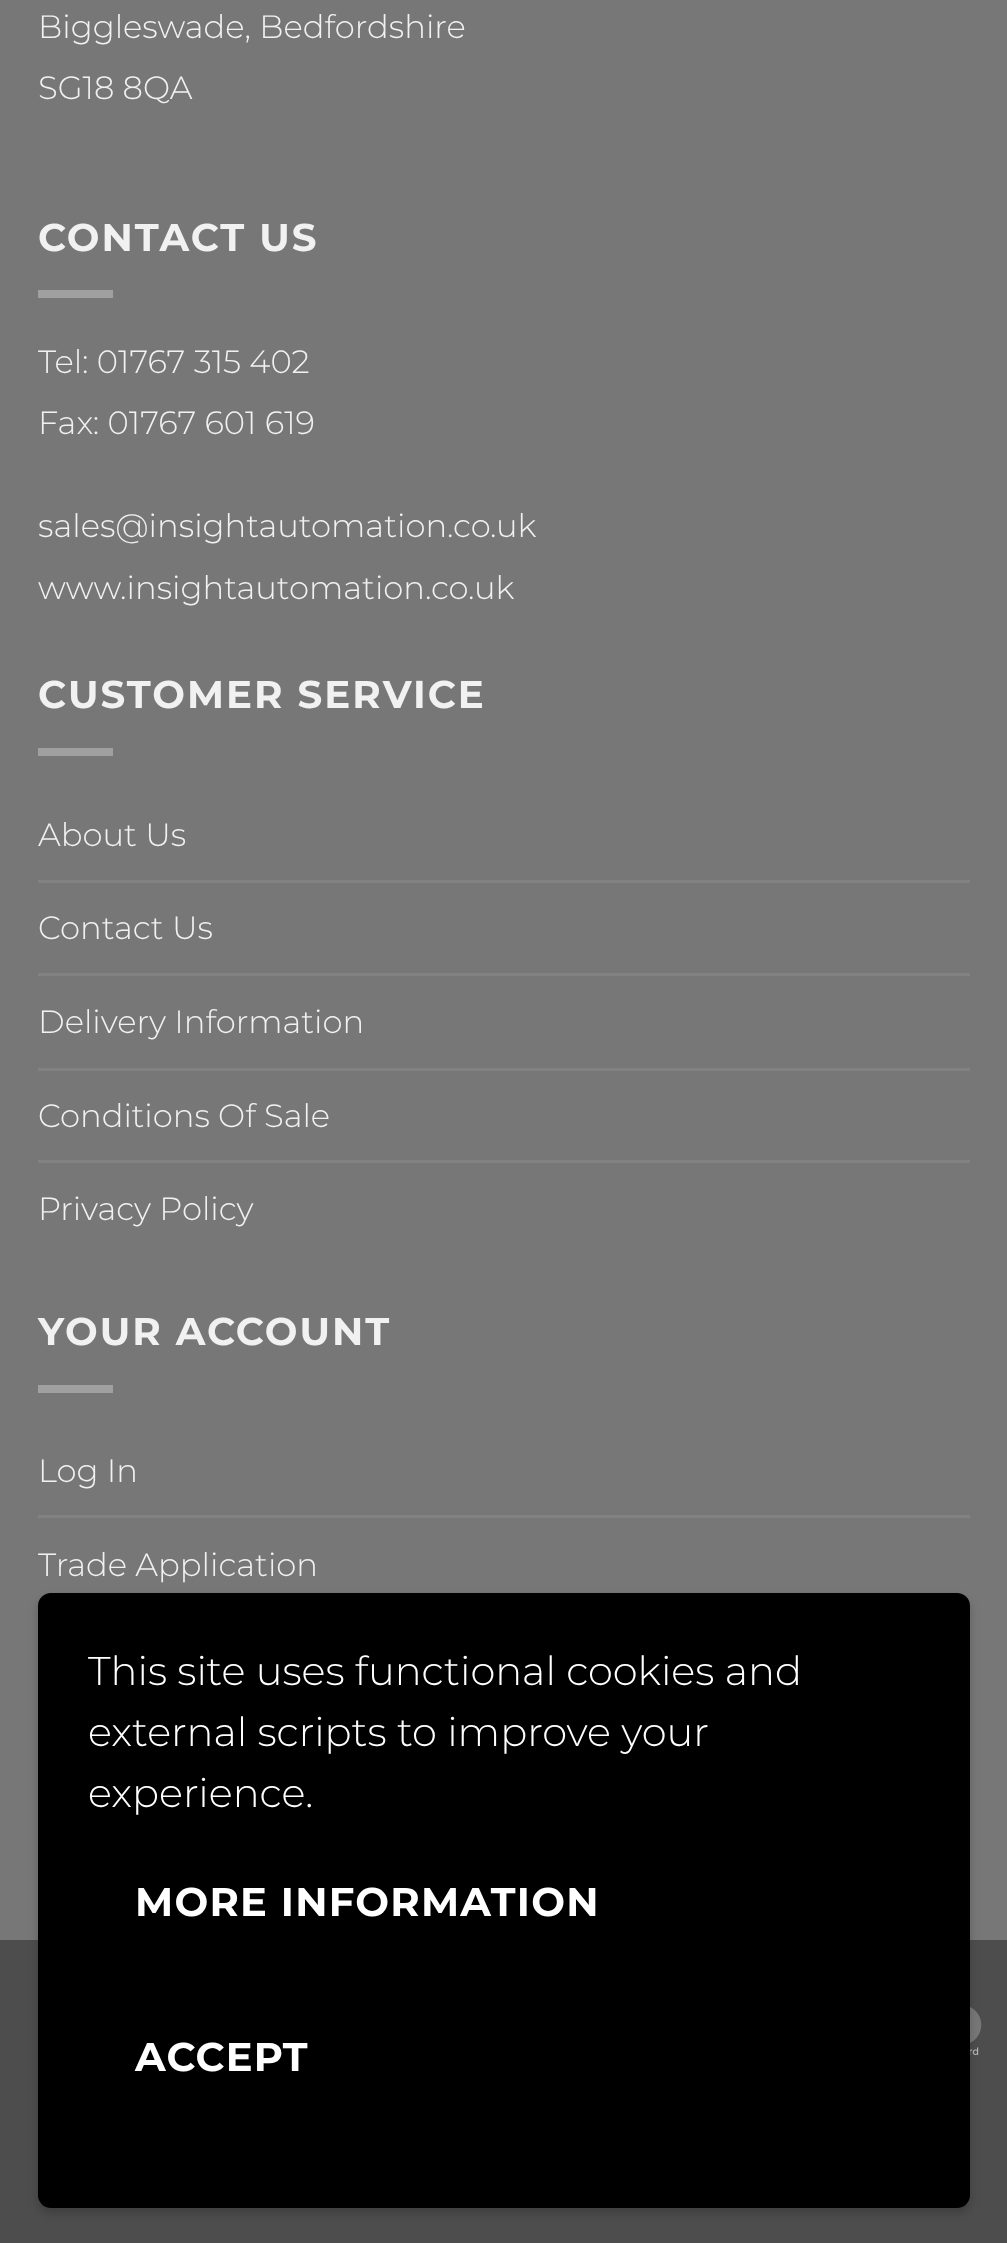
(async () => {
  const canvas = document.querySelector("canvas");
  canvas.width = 1007;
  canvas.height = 2243;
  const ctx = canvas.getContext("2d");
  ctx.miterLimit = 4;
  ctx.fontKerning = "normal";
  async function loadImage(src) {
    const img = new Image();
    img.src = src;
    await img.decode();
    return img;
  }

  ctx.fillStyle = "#777777";
  ctx.fillRect(0, 0, 1007, 2243);
  for (const [x, y, w, h, color] of [
    [38, 290, 75, 8, "#a0a0a0"],
    [38, 748, 75, 8, "#a0a0a0"],
    [38, 880, 932, 3, "#828282"],
    [38, 973, 932, 3, "#828282"],
    [38, 1068, 932, 3, "#828282"],
    [38, 1160, 932, 3, "#828282"],
    [38, 1385, 75, 8, "#a0a0a0"],
    [38, 1515, 932, 3, "#828282"],
    [0, 1940, 1007, 303, "#4d4d4d"],
  ]) {
    ctx.fillStyle = color;
    ctx.fillRect(x, y, w, h);
  }
  ctx.drawImage(await loadImage("img/1.png"), 970, 2007, 12, 48);
  ctx.fillStyle = "rgba(0, 0, 0, 0.2)";
  ctx.filter = "blur(5px)";
  ctx.beginPath();
  ctx.roundRect(38, 1598, 932, 615, 13);
  ctx.fill();
  ctx.filter = "none";
  ctx.fillStyle = "#000000";
  ctx.beginPath();
  ctx.roundRect(38, 1593, 932, 615, 13);
  ctx.fill();
  ctx.font = "100 32.25px Montserrat";
  ctx.fillStyle = "#f1f1f1";
  ctx.fillText("Biggleswade, Bedfordshire", 38, 38);
  ctx.fillText("SG18 8QA", 38, 99);
  ctx.letterSpacing = "2px";
  ctx.font = "bold 38.75px Montserrat";
  ctx.fillText("CONTACT US", 38, 251);
  ctx.letterSpacing = "0px";
  ctx.font = "100 32.25px Montserrat";
  for (const [text, x, y] of [
    ["Tel: 01767 315 402", 38, 373],
    ["Fax: 01767 601 619", 38, 434],
    ["sales@insightautomation.co.uk", 38, 537],
    ["www.insightautomation.co.uk", 38, 599],
  ]) {
    ctx.fillText(text, x, y);
  }
  ctx.letterSpacing = "2px";
  ctx.font = "bold 38.75px Montserrat";
  ctx.fillText("CUSTOMER SERVICE", 38, 708);
  ctx.letterSpacing = "0px";
  ctx.font = "100 32.25px Montserrat";
  for (const [text, x, y] of [
    ["About Us", 38, 846],
    ["Contact Us", 38, 939],
    ["Delivery Information", 38, 1033],
    ["Conditions Of Sale", 38, 1127],
    ["Privacy Policy", 38, 1220],
  ]) {
    ctx.fillText(text, x, y);
  }
  ctx.letterSpacing = "2px";
  ctx.font = "bold 38.75px Montserrat";
  ctx.fillText("YOUR ACCOUNT", 38, 1345);
  ctx.letterSpacing = "0px";
  ctx.font = "100 32.25px Montserrat";
  ctx.fillText("Log In", 38, 1482);
  ctx.fillText("Trade Application", 38, 1576);
  ctx.font = "100 40px Montserrat";
  ctx.fillStyle = "#ffffff";
  for (const [text, x, y] of [
    ["This site uses functional cookies and", 88, 1685],
    ["external scripts to improve your", 88, 1746],
    ["experience.", 88, 1807],
  ]) {
    ctx.fillText(text, x, y);
  }
  ctx.letterSpacing = "1.25px";
  ctx.font = "bold 40px Montserrat";
  ctx.fillText("MORE INFORMATION", 135, 1916);
  ctx.fillText("ACCEPT", 135, 2071);
})();
